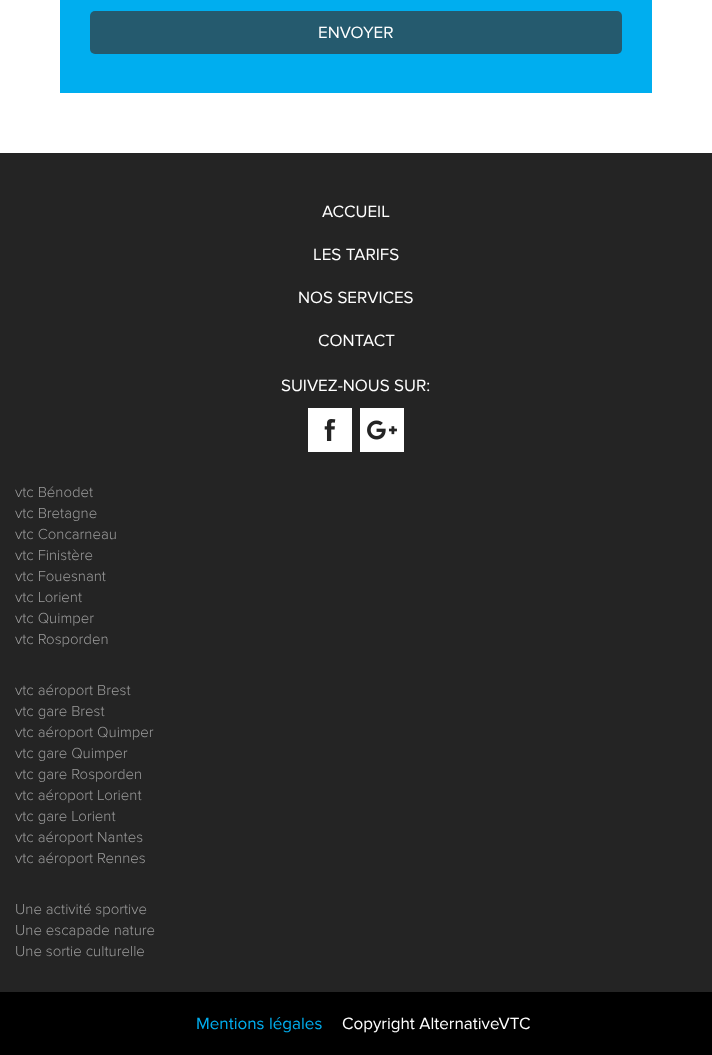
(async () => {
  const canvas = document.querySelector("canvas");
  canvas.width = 712;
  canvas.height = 1055;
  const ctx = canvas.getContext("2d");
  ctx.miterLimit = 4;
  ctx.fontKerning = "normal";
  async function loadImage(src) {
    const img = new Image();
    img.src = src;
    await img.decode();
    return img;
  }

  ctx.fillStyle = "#ffffff";
  ctx.fillRect(0, 0, 712, 1055);
  ctx.fillStyle = "#00aeef";
  ctx.fillRect(60, 0, 592, 93);
  ctx.fillStyle = "#255a6e";
  ctx.beginPath();
  ctx.roundRect(90, 11, 532, 43, 5);
  ctx.fill();
  ctx.fillStyle = "#242424";
  ctx.fillRect(0, 153, 712, 839);
  ctx.drawImage(await loadImage("img/1.png"), 308, 408, 44, 44);
  ctx.drawImage(await loadImage("img/2.png"), 360, 408, 44, 44);
  ctx.fillStyle = "#000000";
  ctx.fillRect(0, 992, 712, 63);
  ctx.font = "17px Proxima Nova";
  ctx.fillStyle = "#ffffff";
  for (const [text, x, y] of [
    ["ENVOYER", 318, 38],
    ["ACCUEIL", 322, 217],
    ["LES TARIFS", 313, 260],
    ["NOS SERVICES", 298, 303],
    ["CONTACT", 318, 346],
    ["SUIVEZ-NOUS SUR:", 281, 391],
  ]) {
    ctx.fillText(text, x, y);
  }
  ctx.font = "300 15px Proxima Nova";
  ctx.fillStyle = "#9c9c9c";
  for (const [text, x, y] of [
    ["vtc Bénodet", 15, 497],
    ["vtc Bretagne", 15, 518],
    ["vtc Concarneau", 15, 539],
    ["vtc Finistère", 15, 560],
    ["vtc Fouesnant", 15, 581],
    ["vtc Lorient", 15, 602],
    ["vtc Quimper", 15, 623],
    ["vtc Rosporden", 15, 644],
    ["vtc aéroport Brest", 15, 695],
    ["vtc gare Brest", 15, 716],
    ["vtc aéroport Quimper", 15, 737],
    ["vtc gare Quimper", 15, 758],
    ["vtc gare Rosporden", 15, 779],
    ["vtc aéroport Lorient", 15, 800],
    ["vtc gare Lorient", 15, 821],
    ["vtc aéroport Nantes", 15, 842],
    ["vtc aéroport Rennes", 15, 863],
    ["Une activité sportive", 15, 914],
    ["Une escapade nature", 15, 935],
    ["Une sortie culturelle", 15, 956],
  ]) {
    ctx.fillText(text, x, y);
  }
  ctx.font = "17px Proxima Nova";
  ctx.fillStyle = "#00aeef";
  ctx.fillText("Mentions légales", 196, 1029);
  ctx.fillStyle = "#ffffff";
  ctx.fillText("Copyright AlternativeVTC", 342, 1029);
})();
